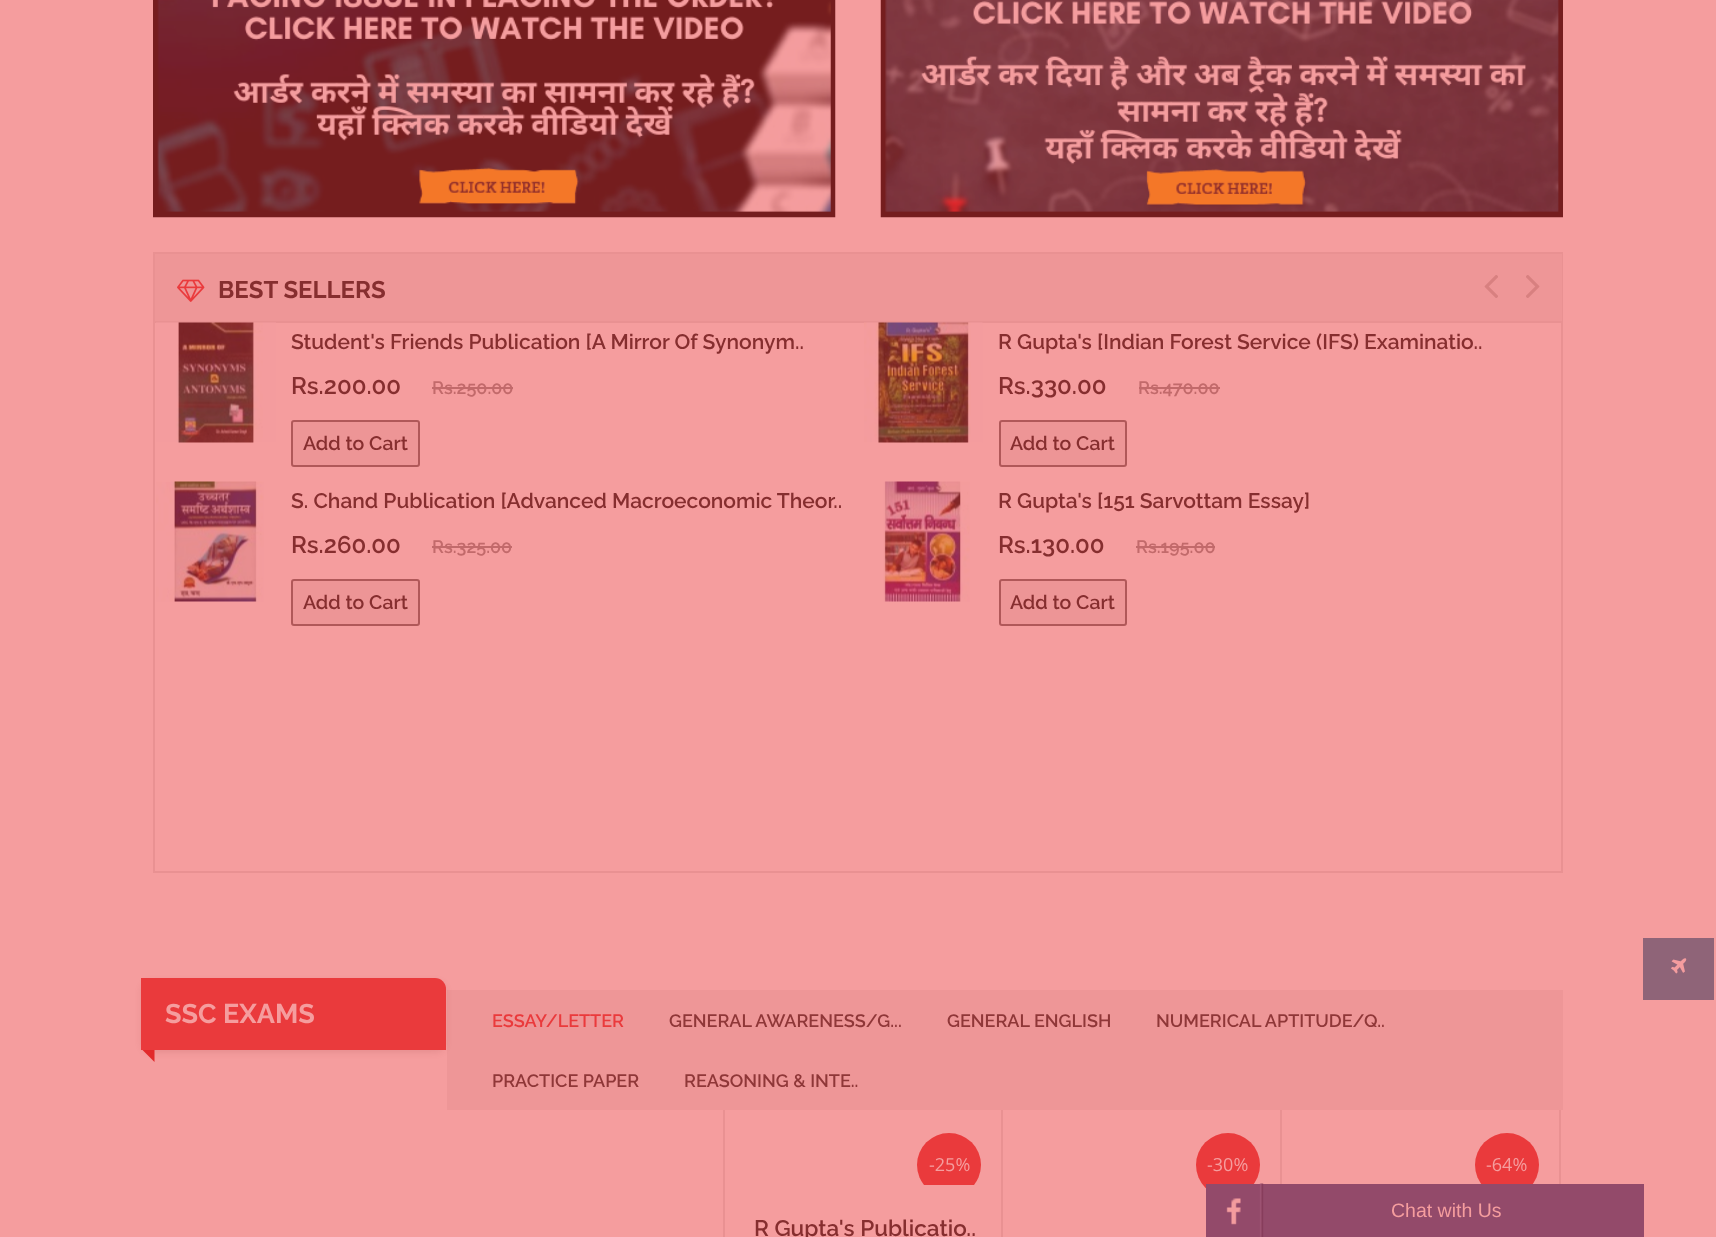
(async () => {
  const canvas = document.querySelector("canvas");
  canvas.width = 1716;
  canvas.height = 1237;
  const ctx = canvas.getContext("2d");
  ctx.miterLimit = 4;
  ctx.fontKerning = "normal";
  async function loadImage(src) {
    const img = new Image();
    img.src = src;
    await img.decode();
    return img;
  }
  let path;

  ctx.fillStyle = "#f59d9e";
  ctx.fillRect(0, 0, 1716, 1237);
  ctx.drawImage(await loadImage("img/1.png"), 153, 0, 683, 218);
  ctx.drawImage(await loadImage("img/2.png"), 880, 0, 683, 218);
  ctx.strokeStyle = "#e99192";
  ctx.lineWidth = 2;
  ctx.strokeRect(154, 253, 1408, 619);
  ctx.fillStyle = "#ee9697";
  ctx.fillRect(155, 254, 1407, 67);
  ctx.fillStyle = "#e99192";
  ctx.fillRect(155, 321, 1407, 2);
  ctx.drawImage(await loadImage("img/3.png"), 177, 279, 28, 23);
  ctx.drawImage(await loadImage("img/4.png"), 1484, 275, 14, 23);
  ctx.drawImage(await loadImage("img/5.png"), 1526, 275, 14, 23);
  ctx.drawImage(await loadImage("img/6.png"), 156, 322, 120, 121);
  ctx.fillStyle = "#c26a6b";
  ctx.fillRect(432, 387, 81, 2);
  ctx.fillStyle = "#ed9596";
  ctx.beginPath();
  ctx.roundRect(292, 421, 127, 45, 2);
  ctx.fill();
  ctx.strokeStyle = "#b05859";
  ctx.stroke();
  ctx.drawImage(await loadImage("img/7.png"), 156, 481, 108, 121);
  ctx.fillStyle = "#c26a6b";
  ctx.fillRect(432, 546, 80, 2);
  ctx.fillStyle = "#ed9596";
  ctx.beginPath();
  ctx.roundRect(292, 580, 127, 45, 2);
  ctx.fill();
  ctx.stroke();
  ctx.drawImage(await loadImage("img/8.png"), 864, 322, 119, 121);
  ctx.fillStyle = "#c26a6b";
  ctx.fillRect(1139, 387, 81, 2);
  ctx.fillStyle = "#ed9596";
  ctx.beginPath();
  ctx.roundRect(1000, 421, 126, 45, 2);
  ctx.fill();
  ctx.stroke();
  ctx.drawImage(await loadImage("img/9.png"), 883, 481, 87, 121);
  ctx.fillStyle = "#c26a6b";
  ctx.fillRect(1136, 546, 79, 2);
  ctx.fillStyle = "#ed9596";
  ctx.beginPath();
  ctx.roundRect(1000, 580, 126, 45, 2);
  ctx.fill();
  ctx.stroke();
  ctx.fillStyle = "#ee9697";
  ctx.fillRect(447, 990, 1116, 120);
  ctx.fillStyle = "rgba(117, 29, 30, 0.1)";
  ctx.filter = "blur(3px)";
  ctx.beginPath();
  ctx.roundRect(141, 981, 305, 72, 11);
  ctx.fill();
  ctx.filter = "none";
  ctx.fillStyle = "#ea3a3c";
  ctx.beginPath();
  ctx.roundRect(141, 978, 305, 72, [0, 11, 0, 0]);
  ctx.fill();
  ctx.fillStyle = "#e2292b";
  path = new Path2D("M154.5 1050V1062L142.5 1050Z");
  ctx.fill(path);
  ctx.fillStyle = "#e99192";
  ctx.fillRect(723, 1110, 2, 127);
  ctx.save();
  ctx.beginPath();
  ctx.rect(726, 1110, 278, 75);
  ctx.clip();
  ctx.fillStyle = "#ea3a3c";
  ctx.beginPath();
  ctx.arc(949, 1165, 32, 0, Math.PI * 2);
  ctx.fill();
  ctx.restore();
  ctx.fillRect(1001, 1110, 2, 127);
  ctx.fillStyle = "#ea3a3c";
  ctx.beginPath();
  ctx.arc(1228, 1165, 32, 0, Math.PI * 2);
  ctx.fill();
  ctx.fillStyle = "#e99192";
  ctx.fillRect(1280, 1110, 2, 74);
  ctx.fillStyle = "#ea3a3c";
  ctx.beginPath();
  ctx.arc(1507, 1165, 32, 0, Math.PI * 2);
  ctx.fill();
  ctx.fillStyle = "#e99192";
  ctx.fillRect(1559, 1110, 2, 74);
  ctx.fillStyle = "#934a6a";
  ctx.fillRect(1206, 1184, 438, 53);
  ctx.drawImage(await loadImage("img/10.png"), 1226, 1183, 38, 54);
  ctx.fillStyle = "#8f6478";
  ctx.fillRect(1643, 938, 71, 62);
  ctx.drawImage(await loadImage("img/11.png"), 1671, 958, 16, 16);
  ctx.font = "bold 24px Raleway";
  ctx.fillStyle = "#862e2f";
  ctx.fillText("BEST SELLERS", 218, 298);
  ctx.font = "600 21px Raleway";
  ctx.fillText("Student's Friends Publication [A Mirror Of Synonym..", 291, 349);
  ctx.font = "600 24px Raleway";
  ctx.fillText("Rs.200.00", 291, 394);
  ctx.font = "600 18px Raleway";
  ctx.fillStyle = "#c26a6b";
  ctx.fillText("Rs.250.00", 432, 394);
  ctx.font = "600 19.5px Raleway";
  ctx.fillStyle = "#862e2f";
  ctx.fillText("Add to Cart", 303, 450);
  ctx.font = "600 21px Raleway";
  ctx.fillText("S. Chand Publication [Advanced Macroeconomic Theor..", 291, 508);
  ctx.font = "600 24px Raleway";
  ctx.fillText("Rs.260.00", 291, 553);
  ctx.font = "600 18px Raleway";
  ctx.fillStyle = "#c26a6b";
  ctx.fillText("Rs.325.00", 432, 553);
  ctx.font = "600 19.5px Raleway";
  ctx.fillStyle = "#862e2f";
  ctx.fillText("Add to Cart", 303, 609);
  ctx.font = "600 21px Raleway";
  ctx.fillText("R Gupta's [Indian Forest Service (IFS) Examinatio..", 998, 349);
  ctx.font = "600 24px Raleway";
  ctx.fillText("Rs.330.00", 998, 394);
  ctx.font = "600 18px Raleway";
  ctx.fillStyle = "#c26a6b";
  ctx.fillText("Rs.470.00", 1138, 394);
  ctx.font = "600 19.5px Raleway";
  ctx.fillStyle = "#862e2f";
  ctx.fillText("Add to Cart", 1010, 450);
  ctx.font = "600 21px Raleway";
  ctx.fillText("R Gupta's [151 Sarvottam Essay]", 998, 508);
  ctx.font = "600 24px Raleway";
  ctx.fillText("Rs.130.00", 998, 553);
  ctx.font = "600 18px Raleway";
  ctx.fillStyle = "#c26a6b";
  ctx.fillText("Rs.195.00", 1136, 553);
  ctx.font = "600 19.5px Raleway";
  ctx.fillStyle = "#862e2f";
  ctx.fillText("Add to Cart", 1010, 609);
  ctx.font = "bold 27px Raleway";
  ctx.fillStyle = "#f59d9e";
  ctx.fillText("SSC EXAMS", 165, 1023);
  ctx.font = "600 18px Raleway";
  ctx.fillStyle = "#ea3a3c";
  ctx.fillText("ESSAY/LETTER", 492, 1027);
  ctx.fillStyle = "#8f3738";
  for (const [text, x, y] of [
    ["GENERAL AWARENESS/G...", 669, 1027],
    ["GENERAL ENGLISH", 947, 1027],
    ["NUMERICAL APTITUDE/Q..", 1156, 1027],
    ["PRACTICE PAPER", 492, 1087],
    ["REASONING & INTE..", 684, 1087],
  ]) {
    ctx.fillText(text, x, y);
  }
  ctx.font = "18px Open Sans";
  ctx.fillStyle = "#f59d9e";
  ctx.fillText("-25%", 929, 1171);
  ctx.font = "600 22.5px Raleway";
  ctx.fillStyle = "#862e2f";
  ctx.fillText("R Gupta's Publicatio..", 754, 1236);
  ctx.font = "18px Open Sans";
  ctx.fillStyle = "#f59d9e";
  ctx.fillText("-30%", 1207, 1171);
  ctx.fillText("-64%", 1486, 1171);
  ctx.font = "19.5px Liberation Sans";
  ctx.fillText("Chat with Us", 1391, 1217);
})();
